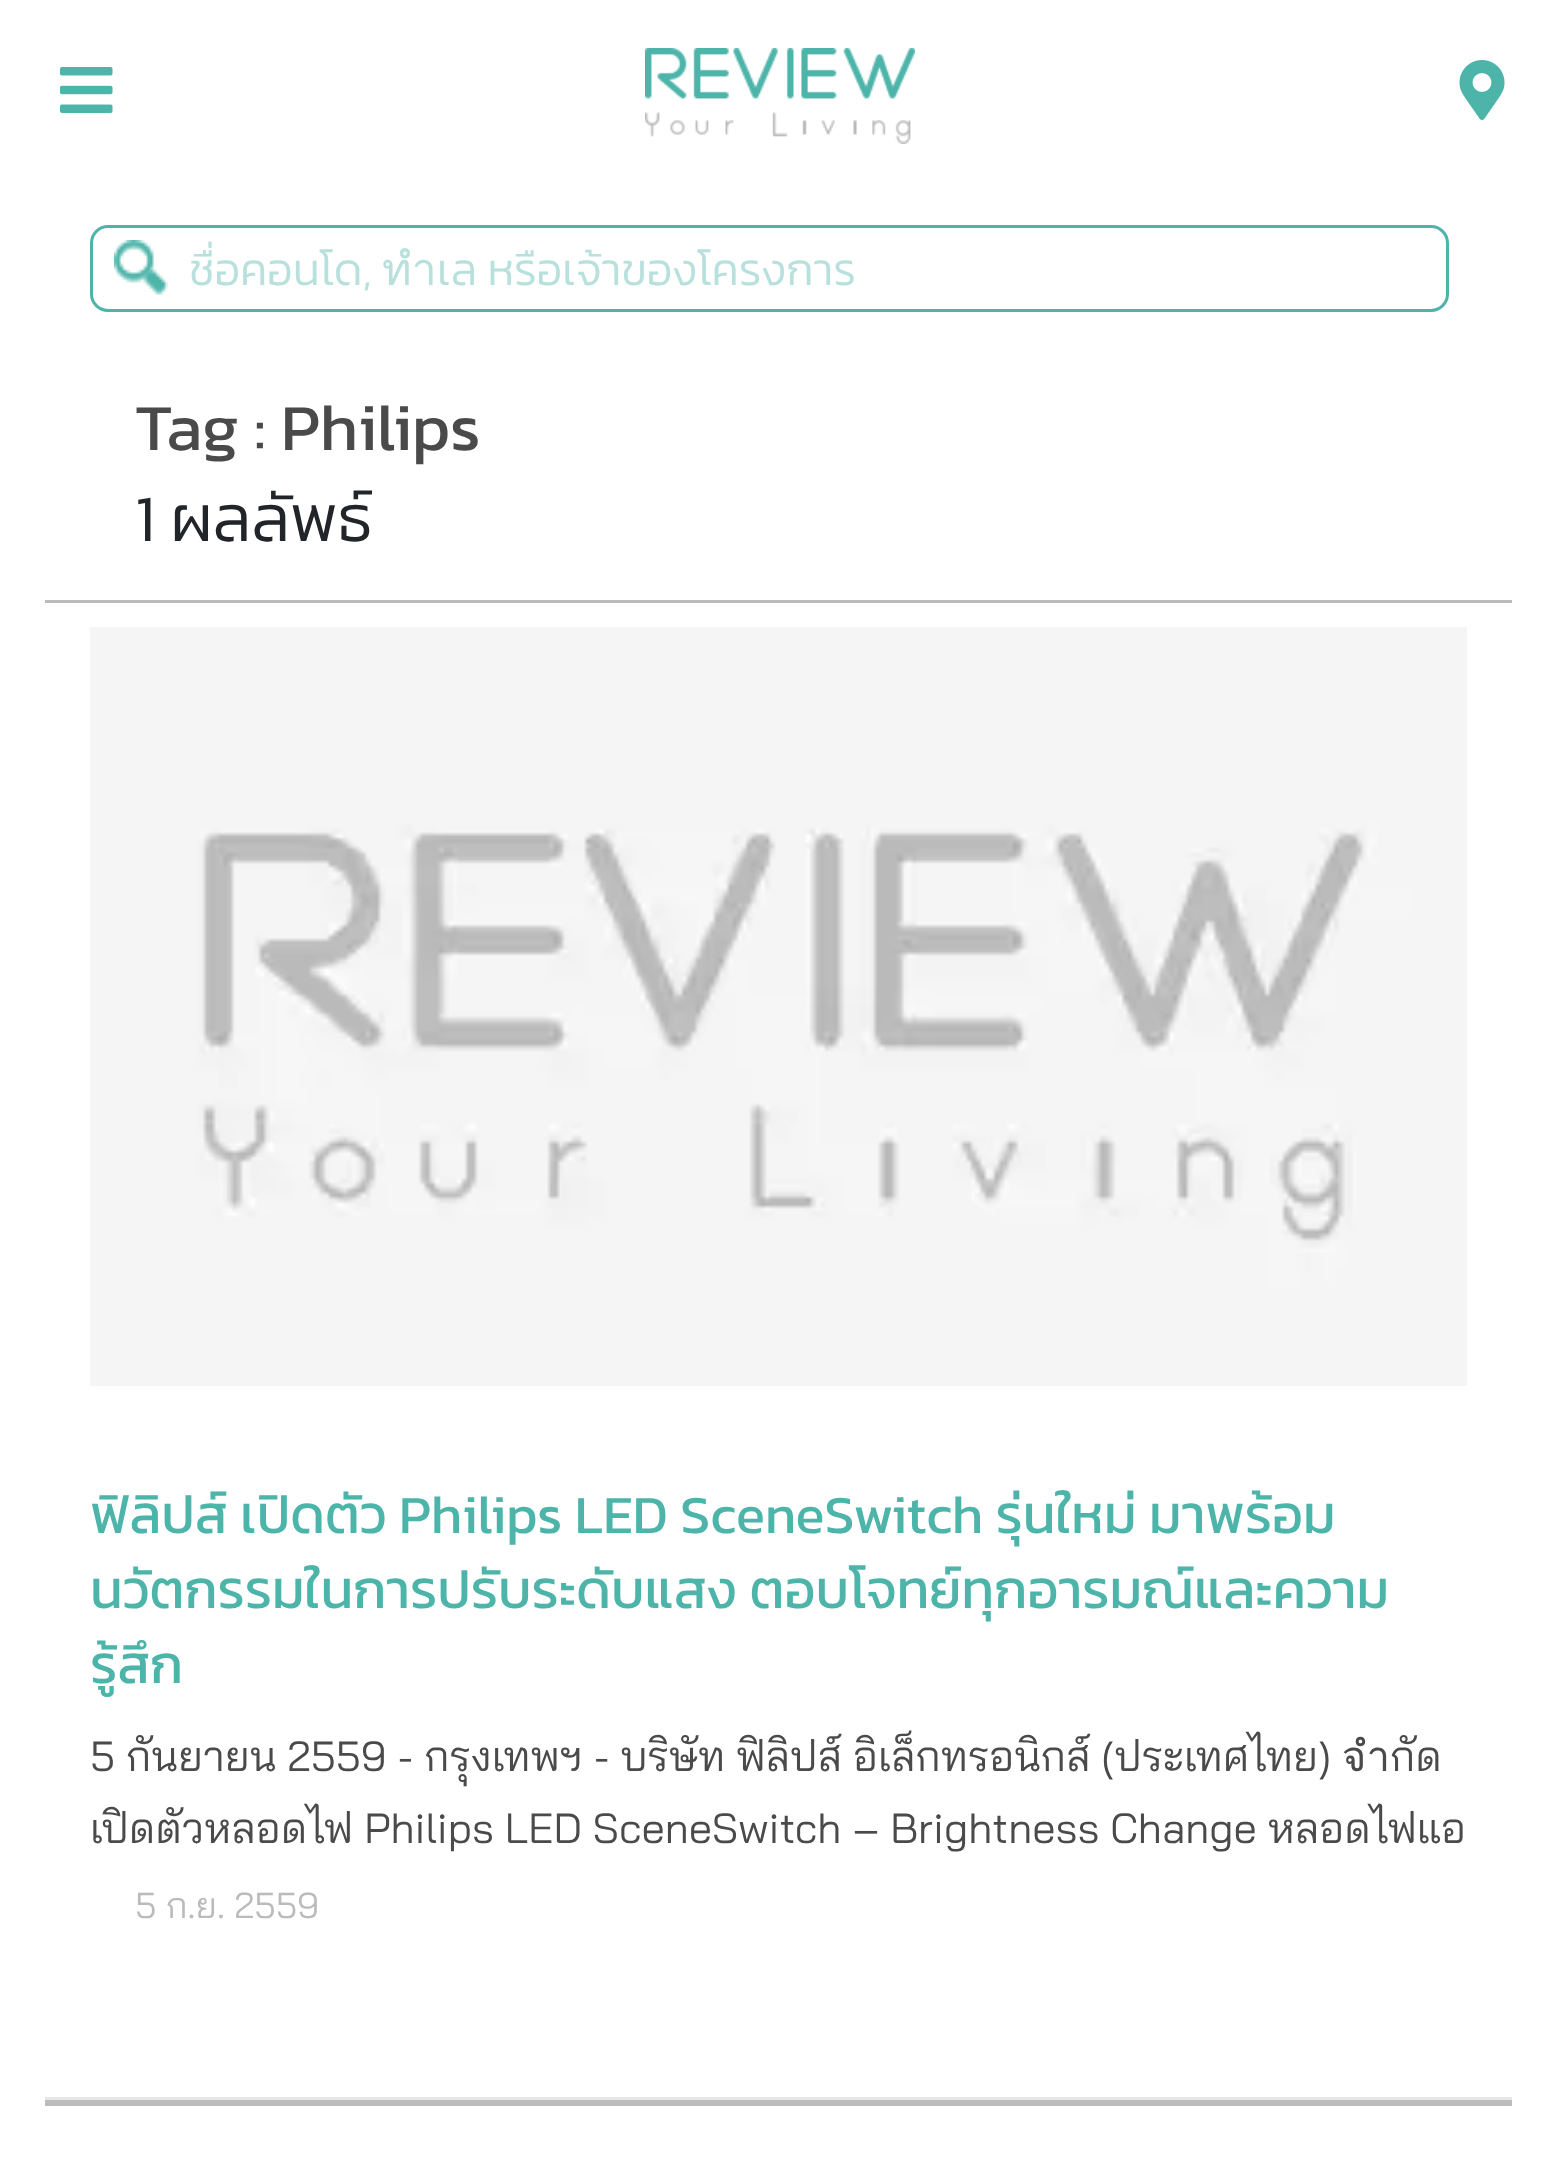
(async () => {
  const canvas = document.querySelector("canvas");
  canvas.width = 1557;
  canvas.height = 2181;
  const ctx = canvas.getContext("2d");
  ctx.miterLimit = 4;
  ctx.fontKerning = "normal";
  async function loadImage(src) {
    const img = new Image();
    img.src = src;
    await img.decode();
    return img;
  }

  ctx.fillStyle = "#ffffff";
  ctx.fillRect(0, 0, 1557, 2181);
  ctx.drawImage(await loadImage("img/1.png"), 645, 48, 270, 96);
  ctx.drawImage(await loadImage("img/2.png"), 60, 67, 53, 46);
  ctx.drawImage(await loadImage("img/3.png"), 1459, 60, 46, 60);
  ctx.drawImage(await loadImage("img/4.png"), 114, 240, 54, 55);
  ctx.beginPath();
  ctx.roundRect(91.5, 226.5, 1356, 84, 16.5);
  ctx.strokeStyle = "#4db4aa";
  ctx.lineWidth = 3;
  ctx.stroke();
  ctx.fillStyle = "#bbbbbb";
  ctx.fillRect(45, 600, 1467, 3);
  ctx.drawImage(await loadImage("img/5.png"), 90, 627, 1377, 759);
  ctx.fillStyle = "#e6e6e6";
  ctx.fillRect(45, 2097, 1467, 3);
  ctx.fillStyle = "#bbbbbb";
  ctx.fillRect(45, 2100, 1467, 6);
  ctx.save();
  ctx.beginPath();
  ctx.rect(189, 234, 1227, 69);
  ctx.clip();
  ctx.font = "300 45px Kanit";
  ctx.fillStyle = "#b8e1dd";
  ctx.fillText("ชื่อคอนโด, ทำเล หรือเจ้าของโครงการ", 189, 285);
  ctx.restore();
  ctx.font = "66px Kanit";
  ctx.fillStyle = "#4a4a4a";
  ctx.fillText("Tag : Philips", 135, 450);
  ctx.font = "300 66px Kanit";
  ctx.fillStyle = "#212529";
  ctx.fillText("1 ผลลัพธ์", 135, 541);
  ctx.save();
  ctx.beginPath();
  ctx.rect(90, 1404, 1377, 297);
  ctx.clip();
  ctx.font = "54px Kanit";
  ctx.fillStyle = "#4db4aa";
  ctx.fillText("ฟิลิปส์ เปิดตัว Philips LED SceneSwitch รุ่นใหม่ มาพร้อม", 90, 1533);
  ctx.restore();
  ctx.font = "54px Kanit";
  ctx.fillStyle = "#4db4aa";
  ctx.fillText("นวัตกรรมในการปรับระดับแสง ตอบโจทย์ทุกอารมณ์และความ", 90, 1608);
  ctx.save();
  ctx.beginPath();
  ctx.rect(90, 1404, 1377, 297);
  ctx.clip();
  ctx.fillText("รู้สึก", 90, 1683);
  ctx.restore();
  ctx.font = "42px Bai Jamjuree";
  ctx.fillStyle = "#4a4a4a";
  ctx.fillText("5 กันยายน 2559 - กรุงเทพฯ - บริษัท ฟิลิปส์ อิเล็กทรอนิกส์ (ประเทศไทย) จำกัด", 90, 1771);
  ctx.save();
  ctx.beginPath();
  ctx.rect(90, 1719, 1377, 144);
  ctx.clip();
  ctx.fillText("เปิดตัวหลอดไฟ Philips LED SceneSwitch – Brightness Change หลอดไฟแอ", 90, 1843);
  ctx.restore();
  ctx.font = "36px Bai Jamjuree";
  ctx.fillStyle = "#bbbbbb";
  ctx.fillText("5 ก.ย. 2559", 135, 1918);
})();
